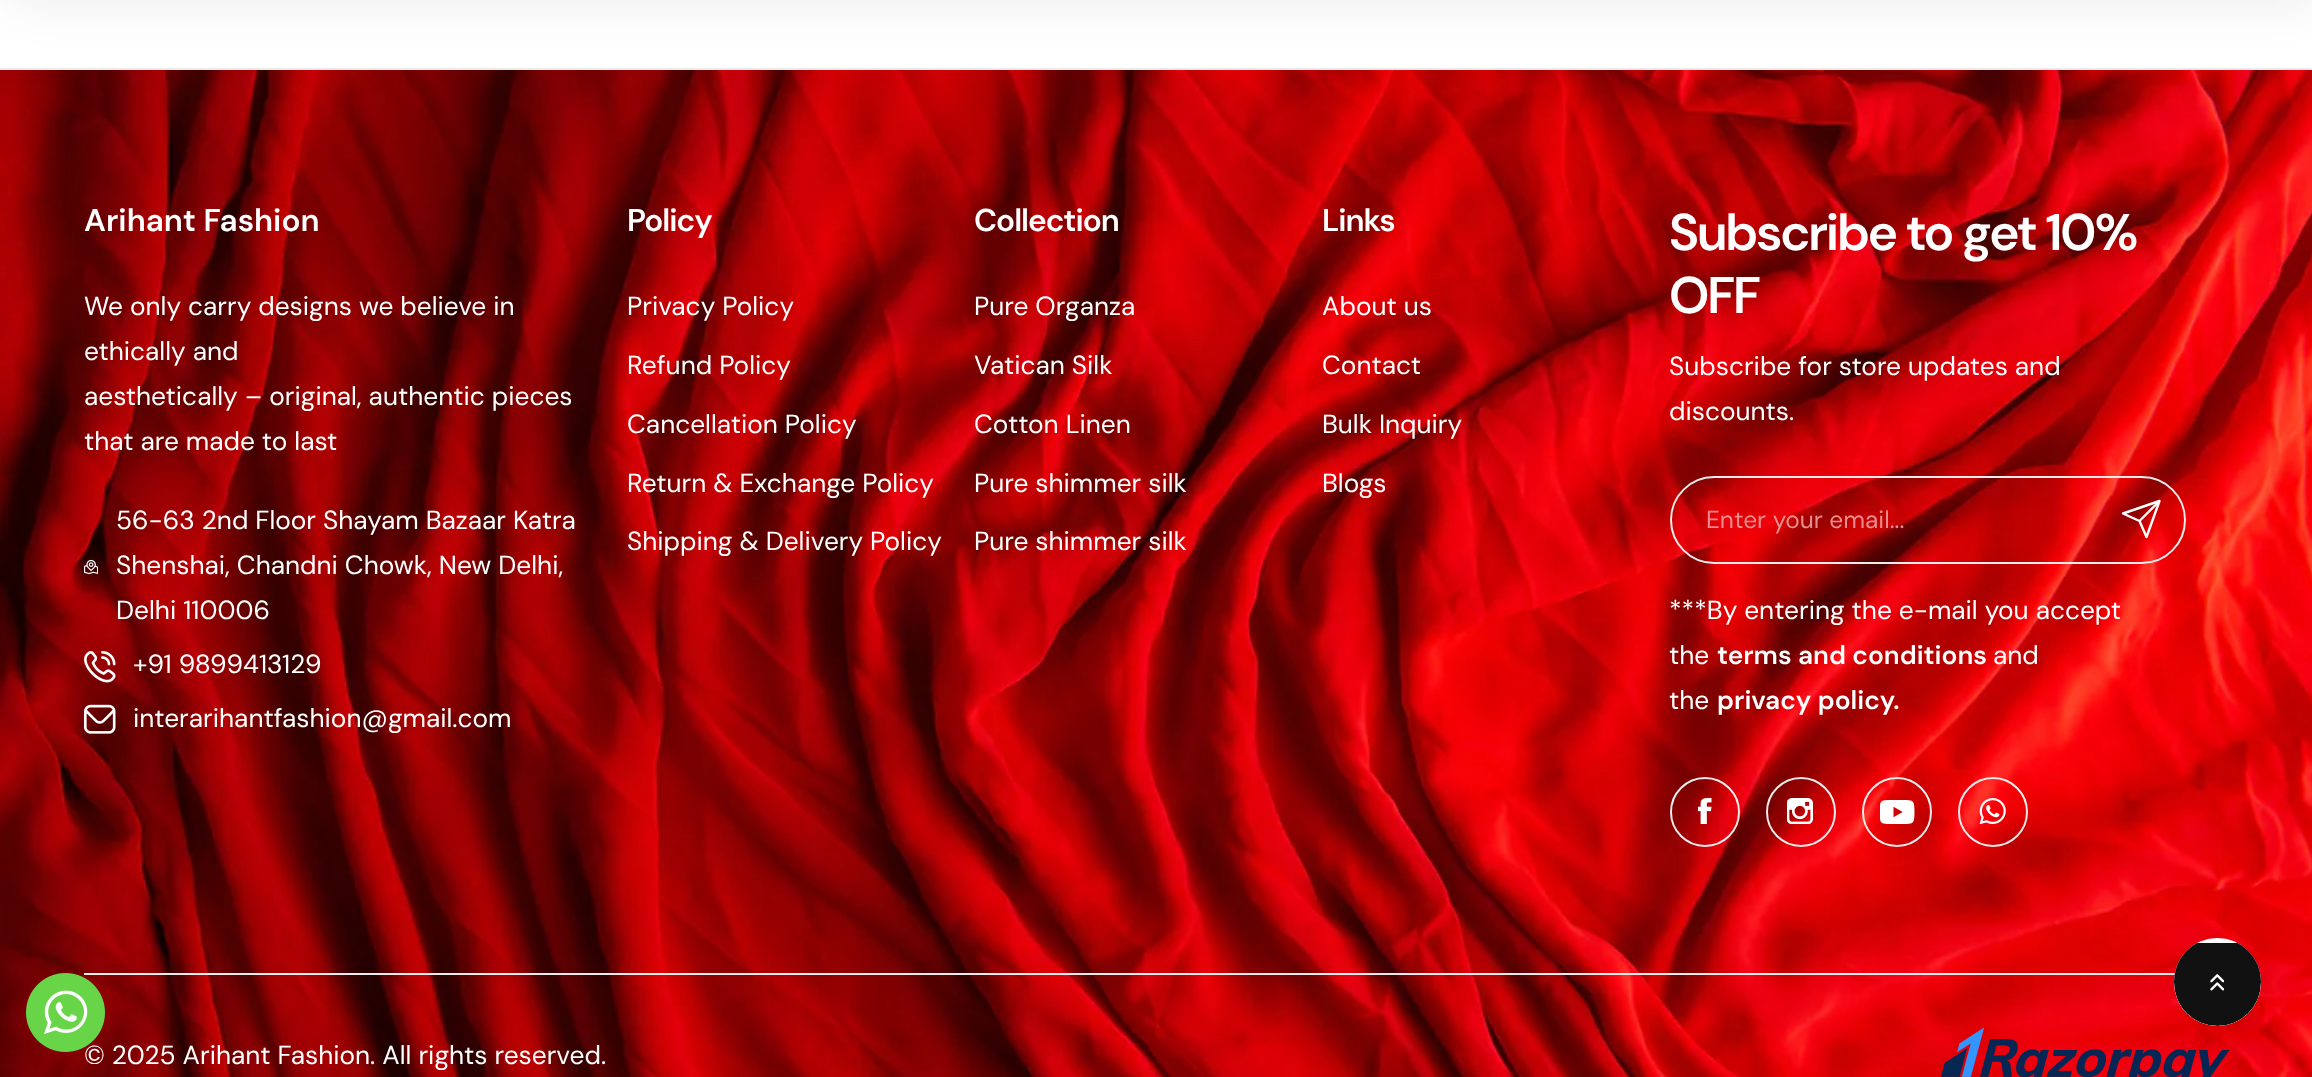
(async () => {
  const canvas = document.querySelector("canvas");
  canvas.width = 2312;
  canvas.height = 1077;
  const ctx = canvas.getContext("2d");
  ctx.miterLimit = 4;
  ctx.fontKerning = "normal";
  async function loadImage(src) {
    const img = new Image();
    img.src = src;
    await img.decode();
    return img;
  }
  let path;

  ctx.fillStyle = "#ffffff";
  ctx.fillRect(0, 0, 2312, 1077);
  ctx.fillStyle = "#ebebeb";
  ctx.fillRect(0, 68, 2312, 2);
  ctx.drawImage(await loadImage("img/2.png"), 0, 70, 2312, 1007);
  ctx.fillStyle = "rgba(0, 0, 0, 0.08)";
  ctx.filter = "blur(26px)";
  ctx.beginPath();
  ctx.rect(9, -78, 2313, 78);
  ctx.fill();
  ctx.filter = "none";
  ctx.drawImage(await loadImage("img/3.png"), 84, 559, 14, 16);
  ctx.drawImage(await loadImage("img/4.png"), 84, 651, 32, 32);
  ctx.drawImage(await loadImage("img/5.png"), 84, 704, 32, 30);
  ctx.beginPath();
  ctx.roundRect(1671, 477, 514, 86, 43);
  ctx.strokeStyle = "#ebebeb";
  ctx.lineWidth = 2;
  ctx.stroke();
  path = new Path2D("M2159.5 501L2139.5 521M2159.5 501L2146.5 537L2139.5 521L2123 513.5Z");
  ctx.strokeStyle = "#ffffff";
  ctx.lineWidth = 2.4;
  ctx.lineCap = "round";
  ctx.lineJoin = "round";
  ctx.stroke(path);
  ctx.beginPath();
  ctx.arc(1705, 812, 34, 0, Math.PI * 2);
  ctx.strokeStyle = "#ebebeb";
  ctx.lineWidth = 2;
  ctx.stroke();
  ctx.drawImage(await loadImage("img/6.png"), 1698, 798, 14, 26);
  ctx.beginPath();
  ctx.arc(1801, 812, 34, 0, Math.PI * 2);
  ctx.stroke();
  ctx.drawImage(await loadImage("img/7.png"), 1787, 798, 26, 26);
  ctx.beginPath();
  ctx.arc(1897, 812, 34, 0, Math.PI * 2);
  ctx.stroke();
  ctx.drawImage(await loadImage("img/8.png"), 1880, 800, 35, 24);
  ctx.beginPath();
  ctx.arc(1993, 812, 34, 0, Math.PI * 2);
  ctx.stroke();
  ctx.drawImage(await loadImage("img/9.png"), 1979, 798, 27, 26);
  ctx.fillStyle = "#ebebeb";
  ctx.fillRect(84, 973, 2091, 2);
  ctx.drawImage(await loadImage("img/10.png"), 1941, 1027, 289, 50);
  ctx.fillStyle = "rgba(0, 0, 0, 0.08)";
  ctx.filter = "blur(26px)";
  ctx.beginPath();
  ctx.roundRect(2182, 938, 88, 88, 44);
  ctx.fill();
  ctx.filter = "none";
  ctx.fillStyle = "#ffffff";
  ctx.beginPath();
  ctx.roundRect(2174, 938, 87, 88, 43.5);
  ctx.fill();
  ctx.save();
  ctx.beginPath();
  ctx.roundRect(2174, 938, 87, 88, 43.5);
  ctx.clip();
  ctx.fillStyle = "#111111";
  ctx.beginPath();
  ctx.roundRect(2174, 943, 87, 83, [0, 0, 43.5, 43.5]);
  ctx.fill();
  ctx.restore();
  ctx.drawImage(await loadImage("img/11.png"), 2210, 974, 14, 17);
  ctx.font = "600 31.5px DM Sans";
  ctx.fillText("Arihant Fashion", 84, 231);
  ctx.font = "26.25px DM Sans";
  for (const [text, x, y] of [
    ["We only carry designs we believe in", 84, 315],
    ["ethically and", 84, 360],
    ["aesthetically – original, authentic pieces", 84, 405],
    ["that are made to last", 84, 450],
    ["56-63 2nd Floor Shayam Bazaar Katra", 116, 529],
    ["Shenshai, Chandni Chowk, New Delhi,", 116, 574],
    ["Delhi 110006", 116, 619],
    ["+91 9899413129", 133, 673],
    ["interarihantfashion@gmail.com", 133, 727],
  ]) {
    ctx.fillText(text, x, y);
  }
  ctx.letterSpacing = "-1px";
  ctx.font = "600 31.5px DM Sans";
  ctx.fillText("Policy", 627, 231);
  ctx.letterSpacing = "0px";
  ctx.font = "26.25px DM Sans";
  for (const [text, x, y] of [
    ["Privacy Policy", 627, 315],
    ["Refund Policy", 627, 374],
    ["Cancellation Policy", 627, 433],
    ["Return & Exchange Policy", 627, 492],
    ["Shipping & Delivery Policy", 627, 550],
  ]) {
    ctx.fillText(text, x, y);
  }
  ctx.letterSpacing = "-1px";
  ctx.font = "600 31.5px DM Sans";
  ctx.fillText("Collection", 974, 231);
  ctx.letterSpacing = "0px";
  ctx.font = "26.25px DM Sans";
  for (const [text, x, y] of [
    ["Pure Organza", 974, 315],
    ["Vatican Silk", 974, 374],
    ["Cotton Linen", 974, 433],
    ["Pure shimmer silk", 974, 492],
    ["Pure shimmer silk", 974, 550],
  ]) {
    ctx.fillText(text, x, y);
  }
  ctx.letterSpacing = "-1px";
  ctx.font = "600 31.5px DM Sans";
  ctx.fillText("Links", 1322, 231);
  ctx.letterSpacing = "0px";
  ctx.font = "26.25px DM Sans";
  for (const [text, x, y] of [
    ["About us", 1322, 315],
    ["Contact", 1322, 374],
    ["Bulk Inquiry", 1322, 433],
    ["Blogs", 1322, 492],
  ]) {
    ctx.fillText(text, x, y);
  }
  ctx.letterSpacing = "-1.75px";
  ctx.font = "600 51.5px 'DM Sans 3'";
  ctx.fillText("Subscribe to get 10%", 1669, 250);
  ctx.fillText("OFF", 1669, 313);
  ctx.letterSpacing = "0px";
  ctx.font = "26.25px DM Sans";
  ctx.fillText("Subscribe for store updates and", 1669, 375);
  ctx.fillText("discounts.", 1669, 420);
  ctx.font = "24.5px 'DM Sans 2'";
  ctx.fillStyle = "#e78d8e";
  ctx.fillText("Enter your email...", 1706, 528);
  ctx.font = "26.25px DM Sans";
  ctx.fillStyle = "#ffffff";
  ctx.fillText("***By entering the e-mail you accept", 1669, 619);
  ctx.fillText("the", 1669, 664);
  ctx.font = "600 26.25px 'DM Sans 2'";
  ctx.fillText("terms and conditions", 1717, 664);
  ctx.font = "26.25px DM Sans";
  ctx.fillText("and", 1993, 664);
  ctx.fillText("the", 1669, 709);
  ctx.font = "600 26.25px 'DM Sans 2'";
  ctx.fillText("privacy policy.", 1717, 709);
  ctx.font = "26.25px DM Sans";
  ctx.fillText("© 2025 Arihant Fashion. All rights reserved.", 84, 1064);
  ctx.drawImage(await loadImage("img/1.png"), 26, 973, 79, 79);
})();
